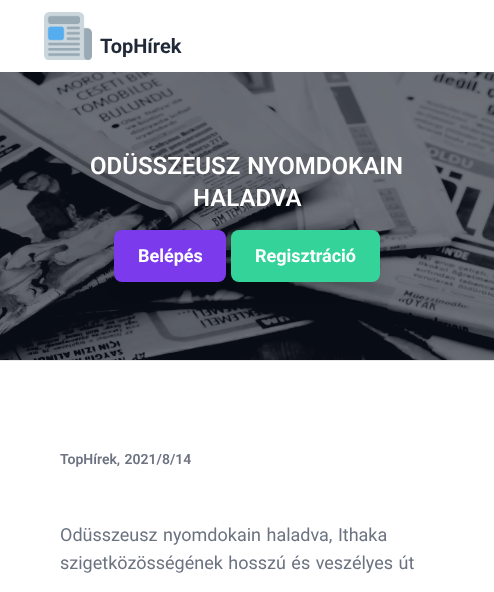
(async () => {
  const canvas = document.querySelector("canvas");
  canvas.width = 494;
  canvas.height = 592;
  const ctx = canvas.getContext("2d");
  ctx.miterLimit = 4;
  ctx.fontKerning = "normal";
  async function loadImage(src) {
    const img = new Image();
    img.src = src;
    await img.decode();
    return img;
  }

  ctx.fillStyle = "#ffffff";
  ctx.fillRect(0, 0, 494, 592);
  ctx.drawImage(await loadImage("img/1.png"), 44, 12, 48, 48);
  ctx.drawImage(await loadImage("img/2.png"), 0, 72, 494, 288);
  ctx.fillStyle = "rgba(0, 0, 0, 0.1)";
  ctx.filter = "blur(7.5px)";
  ctx.beginPath();
  ctx.roundRect(117, 243, 106, 46, 5);
  ctx.fill();
  ctx.filter = "none";
  ctx.fillStyle = "#7c3aed";
  ctx.beginPath();
  ctx.roundRect(114, 230, 112, 52, 8);
  ctx.fill();
  ctx.fillStyle = "rgba(0, 0, 0, 0.1)";
  ctx.filter = "blur(7.5px)";
  ctx.beginPath();
  ctx.roundRect(234, 243, 143, 46, 5);
  ctx.fill();
  ctx.filter = "none";
  ctx.fillStyle = "#34d399";
  ctx.beginPath();
  ctx.roundRect(231, 230, 149, 52, 8);
  ctx.fill();
  ctx.fillStyle = "#e5e7eb";
  ctx.fillRect(0, 360, 494, 1);
  ctx.font = "bold 20px Roboto";
  ctx.fillStyle = "#1f2937";
  ctx.fillText("TopHírek", 100, 53);
  ctx.wordSpacing = "1px";
  ctx.font = "600 24px Roboto";
  ctx.fillStyle = "#ffffff";
  ctx.fillText("ODÜSSZEUSZ NYOMDOKAIN", 90, 174);
  ctx.wordSpacing = "0px";
  ctx.fillText("HALADVA", 193, 206);
  ctx.font = "bold 18px Roboto";
  ctx.fillText("Belépés", 138, 262);
  ctx.fillText("Regisztráció", 255, 262);
  ctx.wordSpacing = "1px";
  ctx.font = "600 14px Roboto";
  ctx.fillStyle = "#6b7280";
  ctx.fillText("TopHírek, 2021/8/14", 60, 464);
  ctx.font = "18px Roboto";
  ctx.fillText("Odüsszeusz nyomdokain haladva, Ithaka", 60, 541);
  ctx.fillText("szigetközösségének hosszú és veszélyes út", 60, 569);
})();
